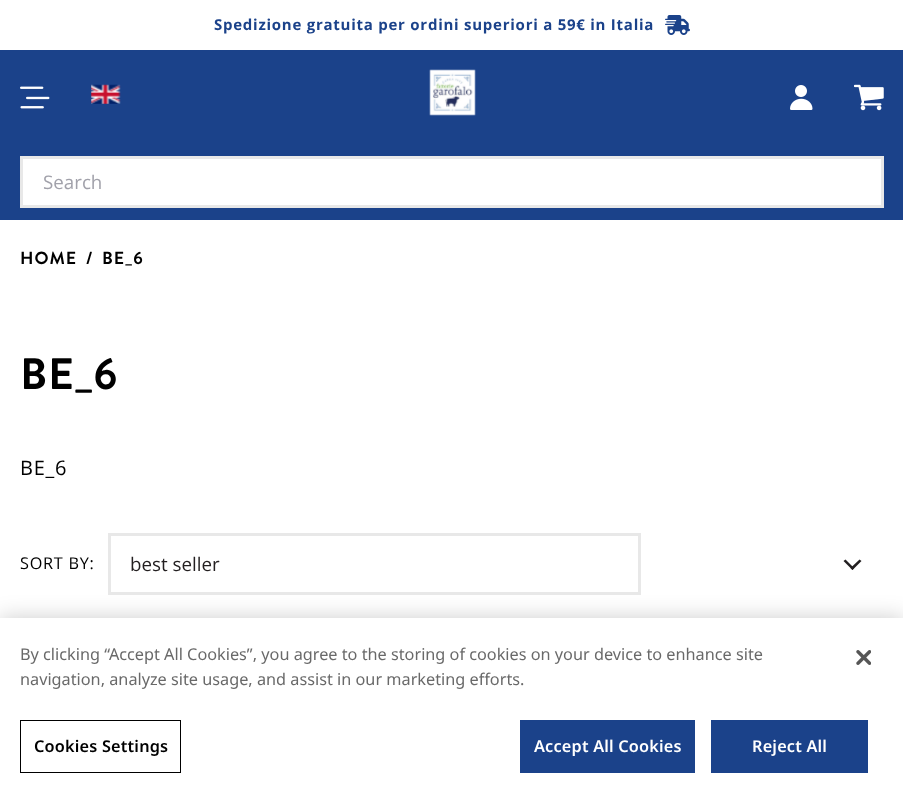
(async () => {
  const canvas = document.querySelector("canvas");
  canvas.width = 903;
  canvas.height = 791;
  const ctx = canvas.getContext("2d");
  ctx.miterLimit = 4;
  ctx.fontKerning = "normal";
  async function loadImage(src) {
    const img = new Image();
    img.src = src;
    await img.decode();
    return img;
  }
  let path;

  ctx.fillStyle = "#ffffff";
  ctx.fillRect(0, 0, 903, 791);
  ctx.drawImage(await loadImage("img/1.png"), 665, 15, 25, 20);
  ctx.fillStyle = "#1b428a";
  ctx.fillRect(0, 50, 903, 170);
  ctx.drawImage(await loadImage("img/2.png"), 20, 86, 30, 23);
  ctx.drawImage(await loadImage("img/3.png"), 91, 84, 30, 20);
  ctx.drawImage(await loadImage("img/4.png"), 429, 69, 47, 47);
  ctx.drawImage(await loadImage("img/5.png"), 790, 85, 23, 25);
  ctx.drawImage(await loadImage("img/6.png"), 854, 84, 30, 27);
  ctx.fillStyle = "#ffffff";
  ctx.beginPath();
  ctx.rect(21.5, 157.5, 861, 49);
  ctx.fill();
  ctx.strokeStyle = "#e8e8e8";
  ctx.lineWidth = 3;
  ctx.stroke();
  ctx.strokeRect(109.5, 534.5, 530, 59);
  ctx.fillStyle = "#231f20";
  path = new Path2D("M861.5 561L852.5 570L850.5 568L859.5 559.5Z");
  ctx.fill(path);
  path = new Path2D("M854 568L852.5 570L843.5 561L845.5 559.5Z");
  ctx.fill(path);
  ctx.fillStyle = "rgba(0, 0, 0, 0.2)";
  ctx.filter = "blur(11px)";
  ctx.beginPath();
  ctx.rect(0, 618, 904, 173);
  ctx.fill();
  ctx.filter = "none";
  ctx.fillStyle = "#ffffff";
  ctx.fillRect(0, 618, 903, 173);
  ctx.strokeStyle = "#000000";
  ctx.lineWidth = 1;
  ctx.strokeRect(20.5, 720.5, 160, 52);
  ctx.fillStyle = "#1b428a";
  ctx.fillRect(520, 720, 175, 53);
  ctx.fillRect(711, 720, 157, 53);
  ctx.drawImage(await loadImage("img/7.png"), 856, 650, 15, 15);
  ctx.letterSpacing = "0.75px";
  ctx.font = "bold 15px Open Sans";
  ctx.fillText("Spedizione gratuita per ordini superiori a 59€ in Italia", 214, 30);
  ctx.letterSpacing = "0px";
  ctx.font = "18.75px Open Sans";
  ctx.fillStyle = "#a1a1aa";
  ctx.fillText("Search", 43, 189);
  ctx.letterSpacing = "1px";
  ctx.font = "bold 17.5px 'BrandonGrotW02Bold'";
  ctx.fillStyle = "#000000";
  for (const [text, x, y] of [
    ["HOME", 20, 264],
    ["/", 86, 264],
    ["BE_6", 102, 264],
  ]) {
    ctx.fillText(text, x, y);
  }
  ctx.letterSpacing = "0.75px";
  ctx.font = "bold 44px 'BrandonGrotW02Bold'";
  ctx.fillText("BE_6", 20, 389);
  ctx.font = "20px Open Sans";
  ctx.fillText("BE_6", 20, 475);
  ctx.font = "16.25px Open Sans";
  ctx.fillText("SORT BY:", 20, 569);
  ctx.letterSpacing = "0px";
  ctx.font = "18.75px Open Sans";
  ctx.fillStyle = "#231f20";
  ctx.fillText("best seller", 130, 571);
  ctx.font = "16.25px Noto Sans";
  ctx.fillStyle = "#696969";
  ctx.fillText("By clicking “Accept All Cookies”, you agree to the storing of cookies on your device to enhance site", 20, 660);
  ctx.fillText("navigation, analyze site usage, and assist in our marketing efforts.", 20, 685);
  ctx.letterSpacing = "0.2px";
  ctx.font = "600 16.25px Noto Sans";
  ctx.fillStyle = "#000000";
  ctx.fillText("Cookies Settings", 34, 752);
  ctx.fillStyle = "#ffffff";
  ctx.fillText("Accept All Cookies", 534, 752);
  ctx.fillText("Reject All", 752, 752);
})();
